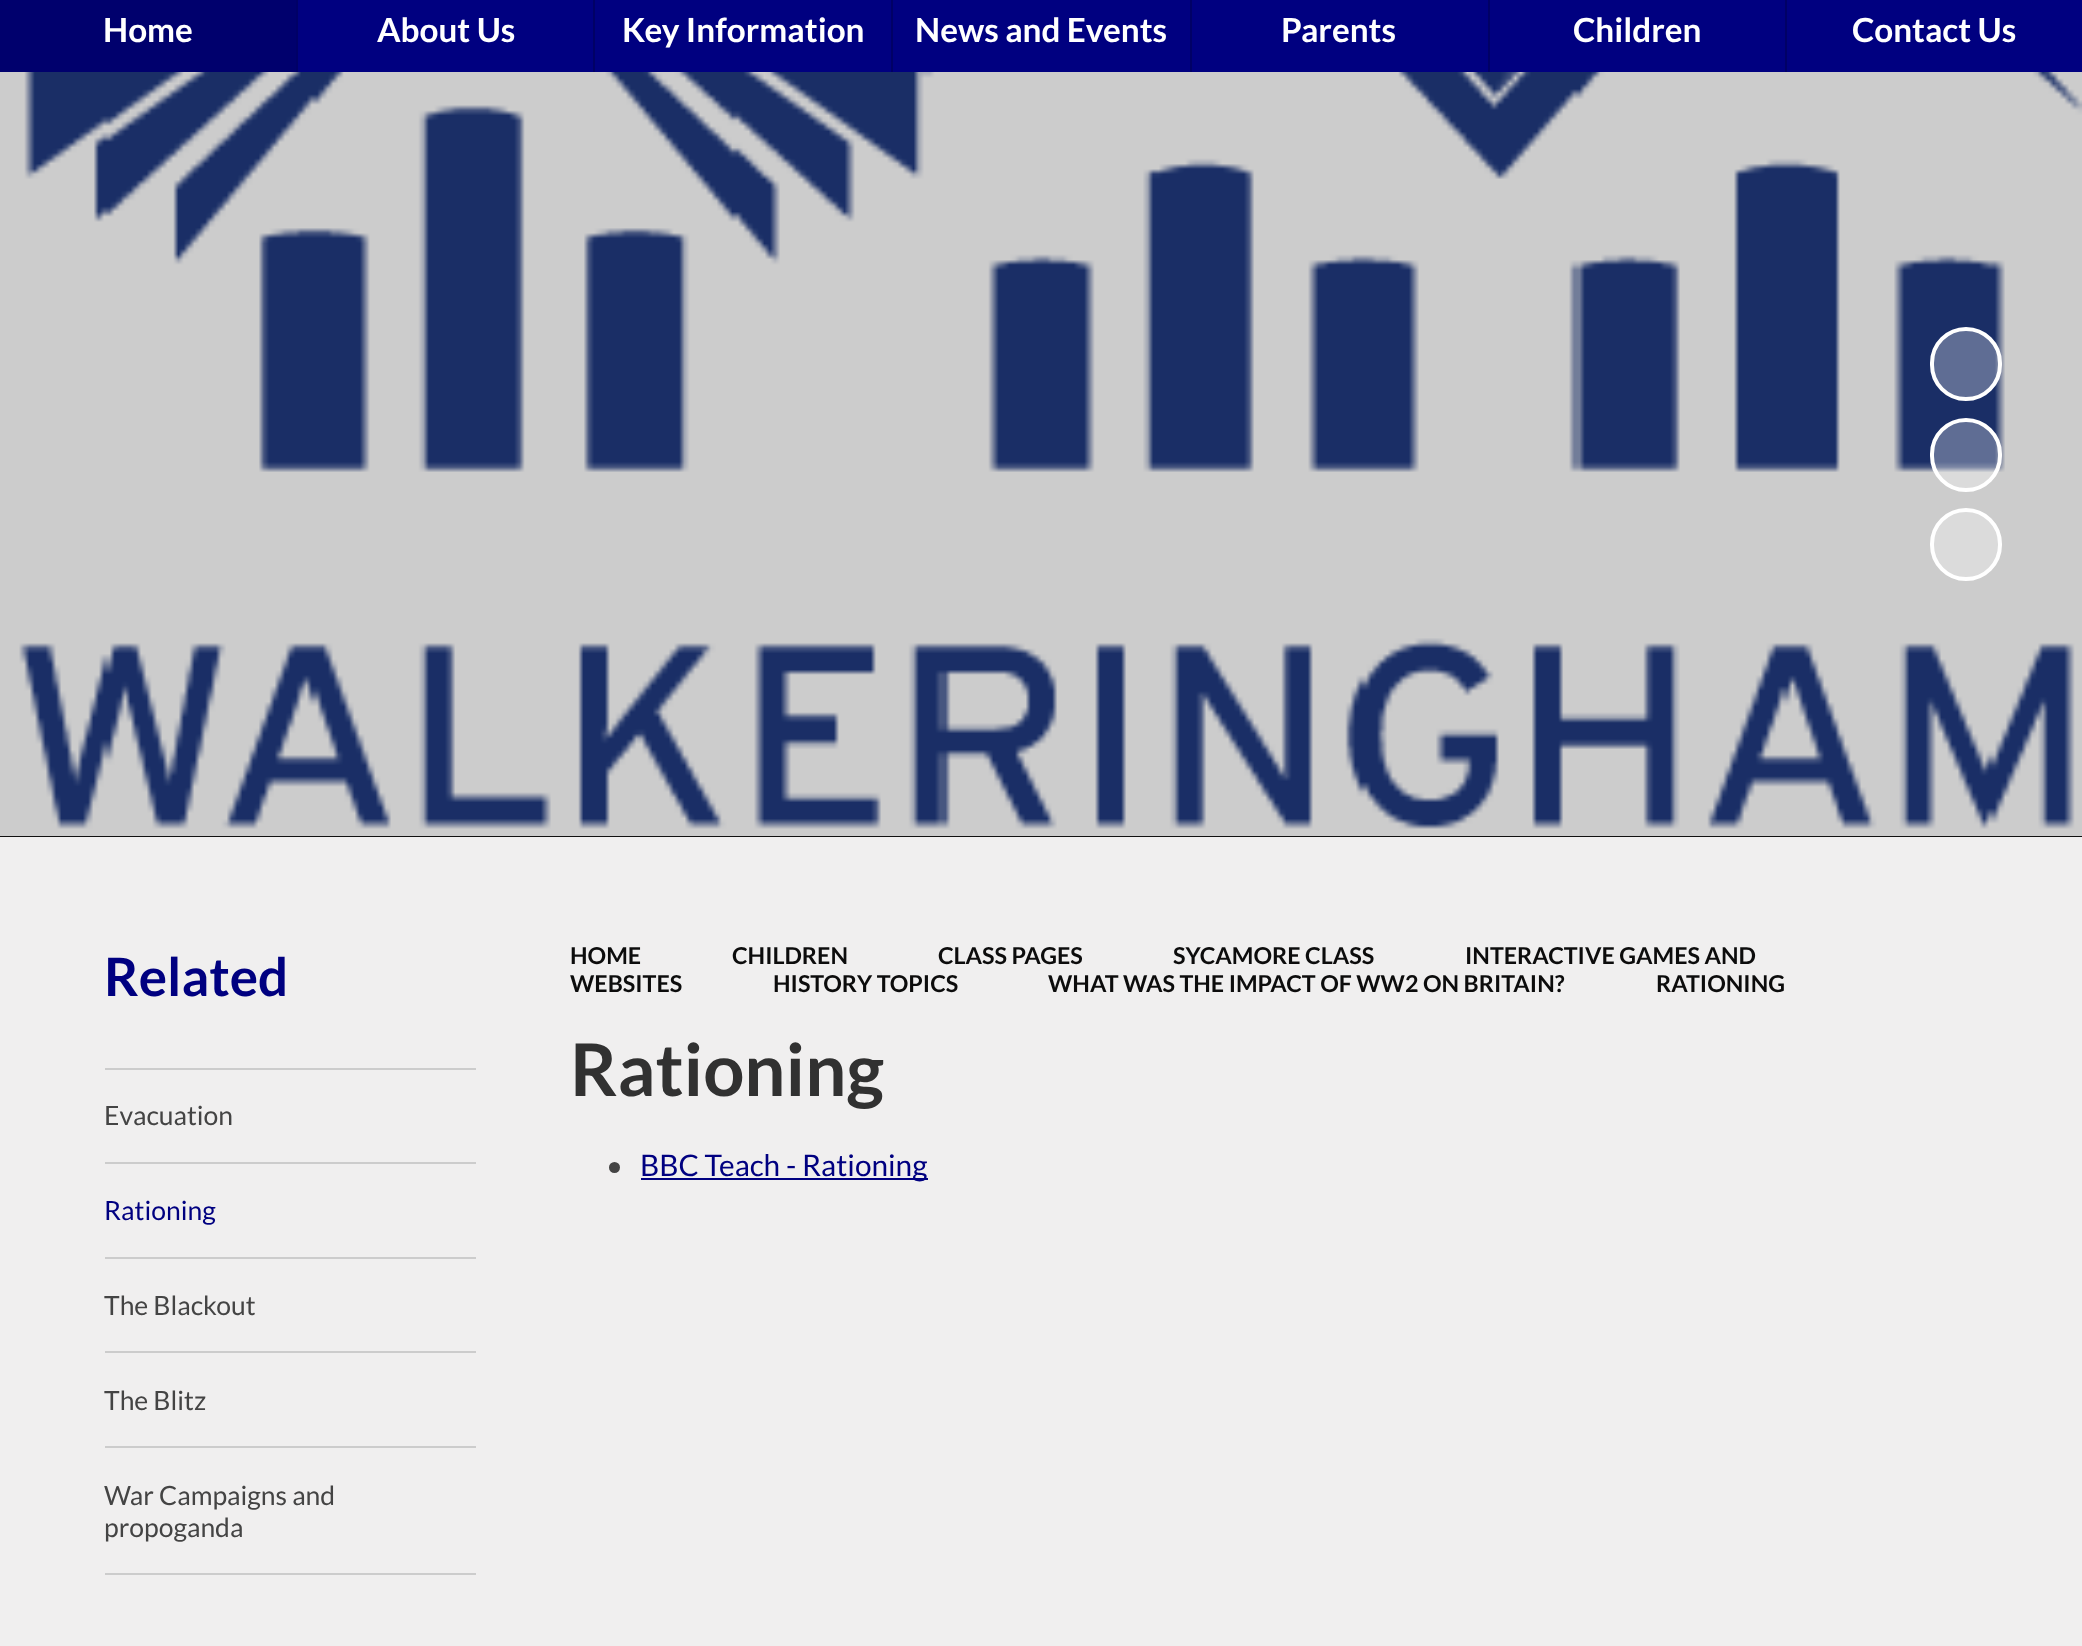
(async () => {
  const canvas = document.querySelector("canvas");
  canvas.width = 2082;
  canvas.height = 1646;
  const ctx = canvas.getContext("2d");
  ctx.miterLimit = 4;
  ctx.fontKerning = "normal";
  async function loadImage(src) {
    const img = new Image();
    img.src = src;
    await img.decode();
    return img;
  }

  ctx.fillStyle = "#111111";
  ctx.fillRect(0, 0, 2082, 1646);
  for (const [x, y, w, h, color] of [
    [298, 0, 1784, 72, "#000080"],
    [296, 0, 2, 72, "#000066"],
    [0, 0, 296, 72, "#00006d"],
    [593, 0, 2, 72, "#000066"],
    [891, 0, 2, 72, "#000066"],
    [1190, 0, 2, 72, "#000066"],
    [1488, 0, 2, 72, "#000066"],
    [1785, 0, 2, 72, "#000066"],
  ]) {
    ctx.fillStyle = color;
    ctx.fillRect(x, y, w, h);
  }
  ctx.drawImage(await loadImage("img/1.png"), 0, 72, 2082, 764);
  ctx.fillStyle = "rgba(255, 255, 255, 0.3)";
  ctx.beginPath();
  ctx.roundRect(1932, 329, 68, 70, 34);
  ctx.fill();
  ctx.strokeStyle = "#ffffff";
  ctx.lineWidth = 4;
  ctx.stroke();
  ctx.beginPath();
  ctx.roundRect(1932, 420, 68, 70, 34);
  ctx.fill();
  ctx.stroke();
  ctx.fillStyle = "#dbdbdb";
  ctx.beginPath();
  ctx.roundRect(1932, 510, 68, 69, 34);
  ctx.fill();
  ctx.stroke();
  for (const [x, y, w, h, color] of [
    [0, 837, 2082, 809, "#f0efef"],
    [105, 1068, 371, 2, "#cccccc"],
    [105, 1162, 371, 2, "#cccccc"],
    [105, 1257, 371, 2, "#cccccc"],
    [105, 1351, 371, 2, "#cccccc"],
    [105, 1446, 371, 2, "#cccccc"],
    [105, 1573, 371, 2, "#cccccc"],
  ]) {
    ctx.fillStyle = color;
    ctx.fillRect(x, y, w, h);
  }
  ctx.fillStyle = "#444444";
  ctx.beginPath();
  ctx.arc(614.5, 1167.5, 5.5, 0, Math.PI * 2);
  ctx.fill();
  ctx.fillStyle = "#000080";
  ctx.fillRect(641, 1178, 287, 2);
  ctx.font = "bold 33.25px Lato";
  ctx.fillStyle = "#ffffff";
  for (const [text, x, y] of [
    ["Home", 103, 42],
    ["About Us", 377, 42],
    ["Key Information", 622, 42],
    ["News and Events", 915, 42],
    ["Parents", 1281, 42],
    ["Children", 1573, 42],
    ["Contact Us", 1852, 42],
  ]) {
    ctx.fillText(text, x, y);
  }
  ctx.font = "bold 53px Lato";
  ctx.fillStyle = "#000080";
  ctx.fillText("Related", 104, 996);
  ctx.font = "26.5px Lato";
  ctx.fillStyle = "#444444";
  ctx.fillText("Evacuation", 104, 1125);
  ctx.fillStyle = "#000080";
  ctx.fillText("Rationing", 104, 1220);
  ctx.fillStyle = "#444444";
  for (const [text, x, y] of [
    ["The Blackout", 104, 1315],
    ["The Blitz", 104, 1410],
    ["War Campaigns and", 104, 1505],
    ["propoganda", 104, 1537],
  ]) {
    ctx.fillText(text, x, y);
  }
  ctx.font = "bold 23.25px Lato";
  ctx.fillStyle = "#0c0c0c";
  for (const [text, x, y] of [
    ["HOME", 570, 964],
    ["CHILDREN", 732, 964],
    ["CLASS PAGES", 938, 964],
    ["SYCAMORE CLASS", 1173, 964],
    ["INTERACTIVE GAMES AND", 1465, 964],
    ["WEBSITES", 570, 992],
    ["HISTORY TOPICS", 773, 992],
    ["WHAT WAS THE IMPACT OF WW2 ON BRITAIN?", 1048, 992],
    ["RATIONING", 1656, 992],
  ]) {
    ctx.fillText(text, x, y);
  }
  ctx.font = "bold 72.5px Lato";
  ctx.fillStyle = "#313131";
  ctx.fillText("Rationing", 570, 1096);
  ctx.font = "29.75px Lato";
  ctx.fillStyle = "#000080";
  ctx.fillText("BBC Teach - Rationing", 640, 1176);
})();
